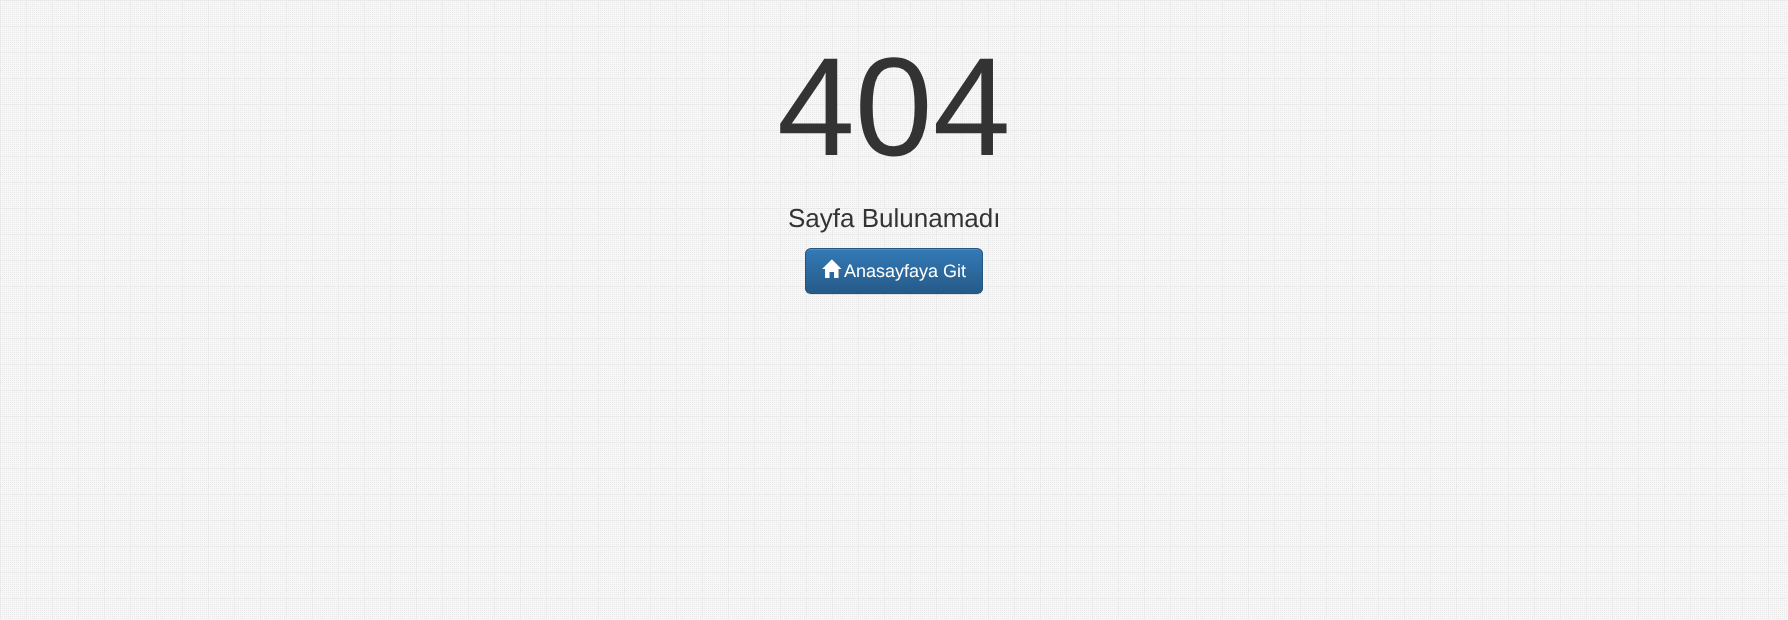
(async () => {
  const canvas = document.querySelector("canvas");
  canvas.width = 1788;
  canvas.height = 620;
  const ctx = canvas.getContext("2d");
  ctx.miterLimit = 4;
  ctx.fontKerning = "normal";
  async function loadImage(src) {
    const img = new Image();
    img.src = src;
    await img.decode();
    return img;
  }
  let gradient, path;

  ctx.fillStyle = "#ffffff";
  ctx.fillRect(0, 0, 1788, 620);
  ctx.drawImage(await loadImage("img/1.png"), 0, 0, 1788, 620);
  ctx.fillStyle = "rgba(0, 0, 0, 0.07)";
  ctx.filter = "blur(0.5px)";
  ctx.beginPath();
  ctx.roundRect(805, 249, 178, 46, 6);
  ctx.fill();
  ctx.filter = "none";
  ctx.save();
  ctx.beginPath();
  ctx.roundRect(805, 248, 178, 46, 6);
  ctx.clip();
  gradient = ctx.createLinearGradient(894, 249, 894, 293);
  gradient.addColorStop(0, "#337ab7");
  gradient.addColorStop(1, "#265a88");
  ctx.fillStyle = gradient;
  ctx.fillRect(805, 249, 178, 44);
  ctx.restore();
  ctx.fillStyle = "#528ec1";
  path = new Path2D("M811 250H977C980 250 982 252 982 255C982 252 981 250 978 249H811C808 249 806 252 806 255C806 252 808 250 811 250Z");
  ctx.fill(path);
  ctx.beginPath();
  ctx.roundRect(805.5, 248.5, 177, 45, 5.5);
  ctx.strokeStyle = "#245580";
  ctx.stroke();
  ctx.drawImage(await loadImage("img/2.png"), 822, 259, 20, 19);
  ctx.font = "140px Liberation Sans";
  ctx.fillStyle = "#333333";
  ctx.fillText("404", 777, 155);
  ctx.font = "26px Liberation Sans";
  ctx.fillText("Sayfa Bulunamadı", 788, 227);
  ctx.font = "18px Liberation Sans";
  ctx.fillStyle = "#ffffff";
  ctx.fillText("Anasayfaya Git", 844, 277);
})();
